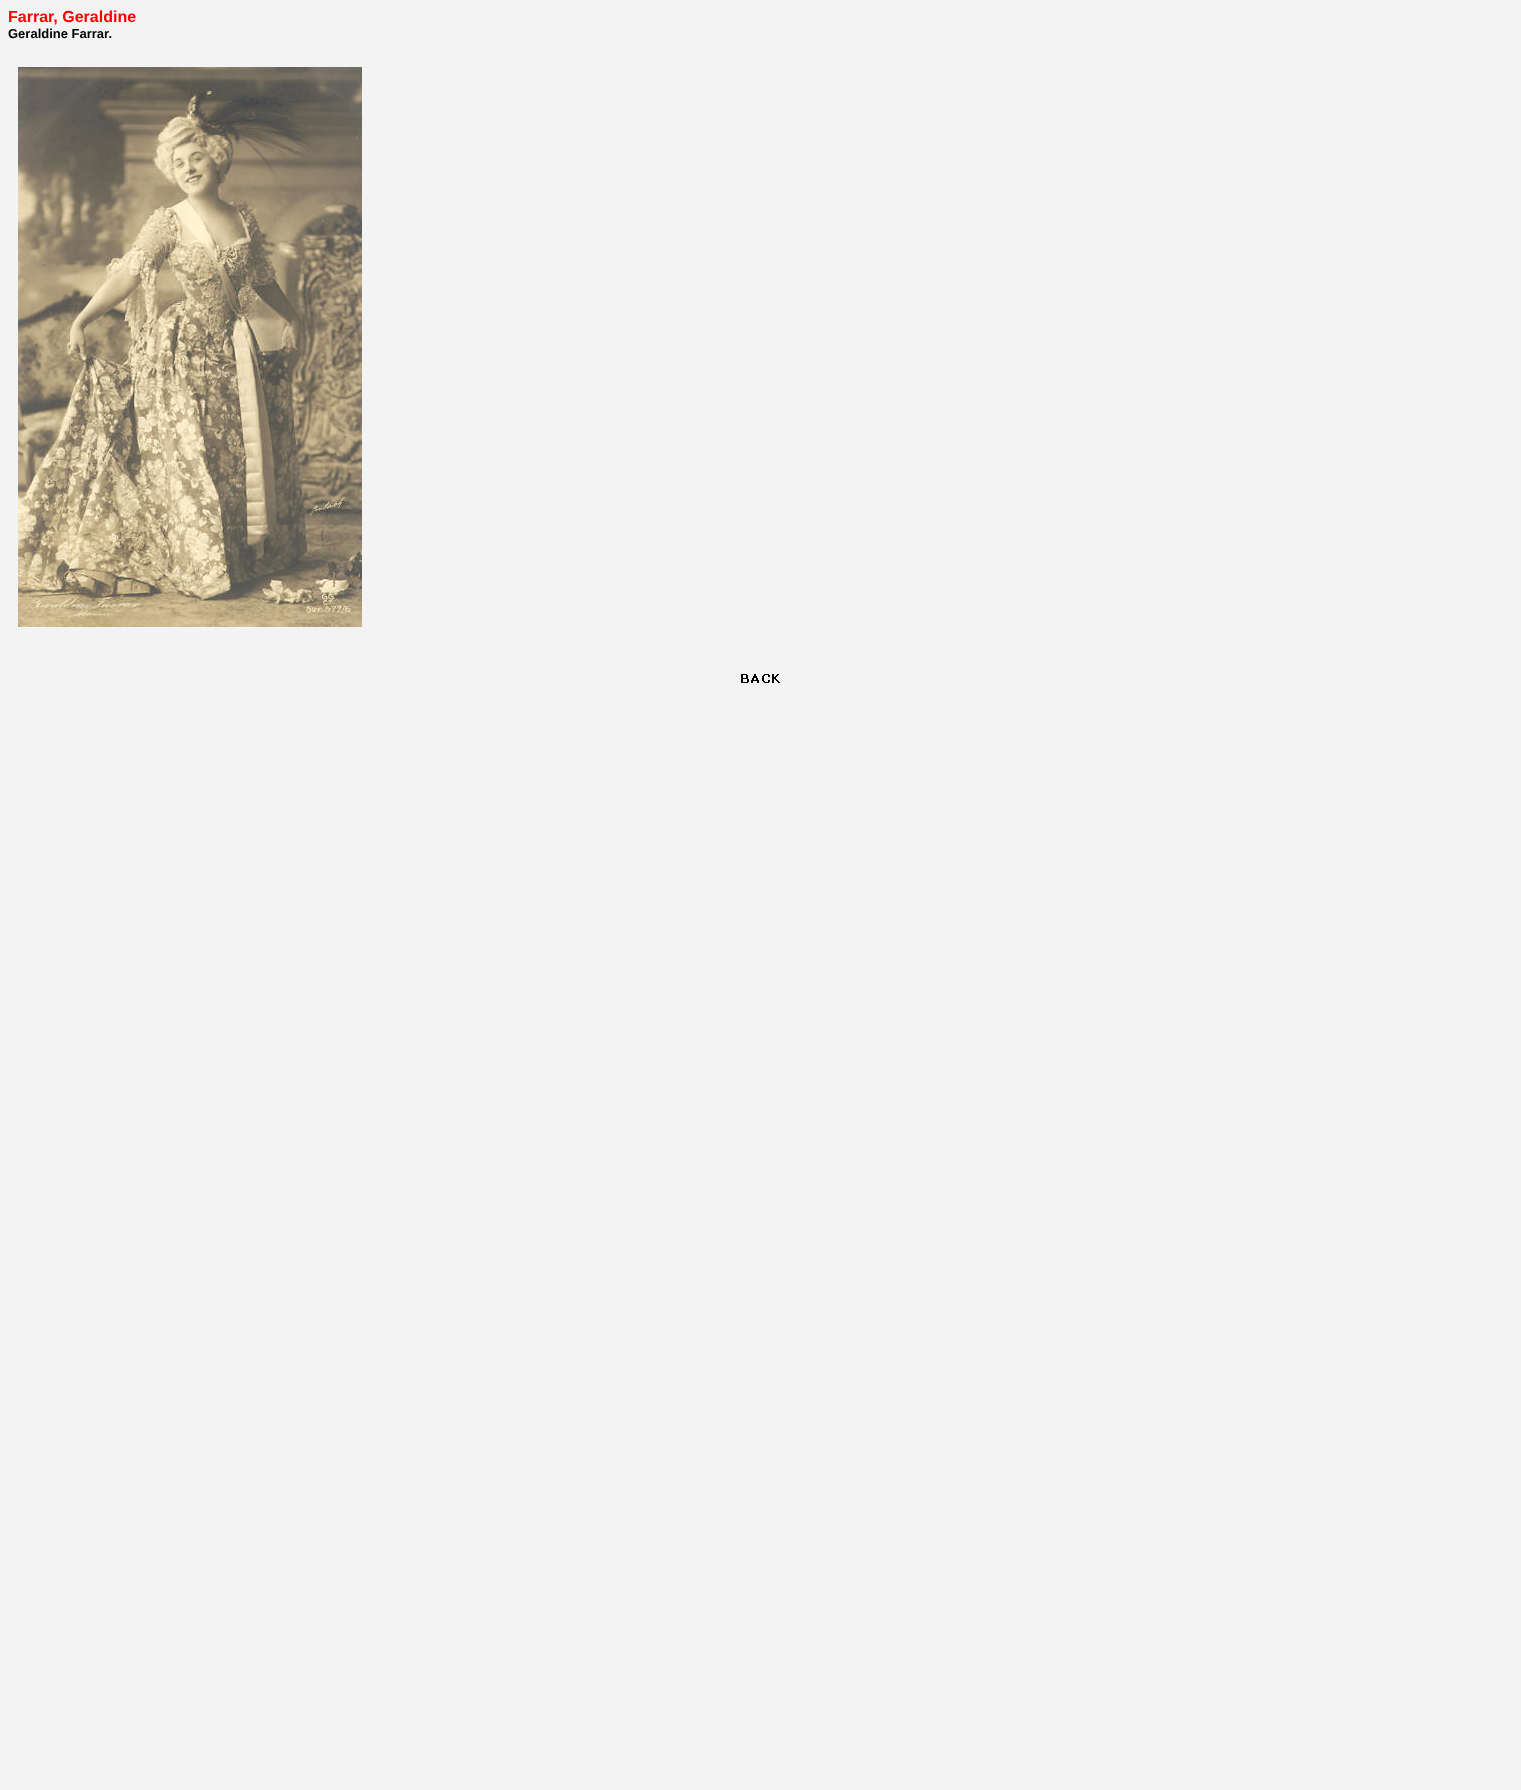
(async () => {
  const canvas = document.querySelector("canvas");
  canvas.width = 1521;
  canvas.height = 1790;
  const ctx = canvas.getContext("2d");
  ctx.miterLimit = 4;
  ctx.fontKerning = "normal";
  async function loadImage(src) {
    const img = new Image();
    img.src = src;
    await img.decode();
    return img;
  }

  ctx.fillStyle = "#f3f3f3";
  ctx.fillRect(0, 0, 1521, 1790);
  ctx.drawImage(await loadImage("img/1.png"), 18, 67, 344, 560);
  ctx.drawImage(await loadImage("img/2.png"), 741, 674, 39, 9);
  ctx.font = "bold 16px Liberation Sans";
  ctx.fillStyle = "#ff0000";
  ctx.fillText("Farrar, Geraldine", 8, 22);
  ctx.font = "bold 13px Liberation Sans";
  ctx.fillStyle = "#000000";
  ctx.fillText("Geraldine Farrar.", 8, 38);
})();
